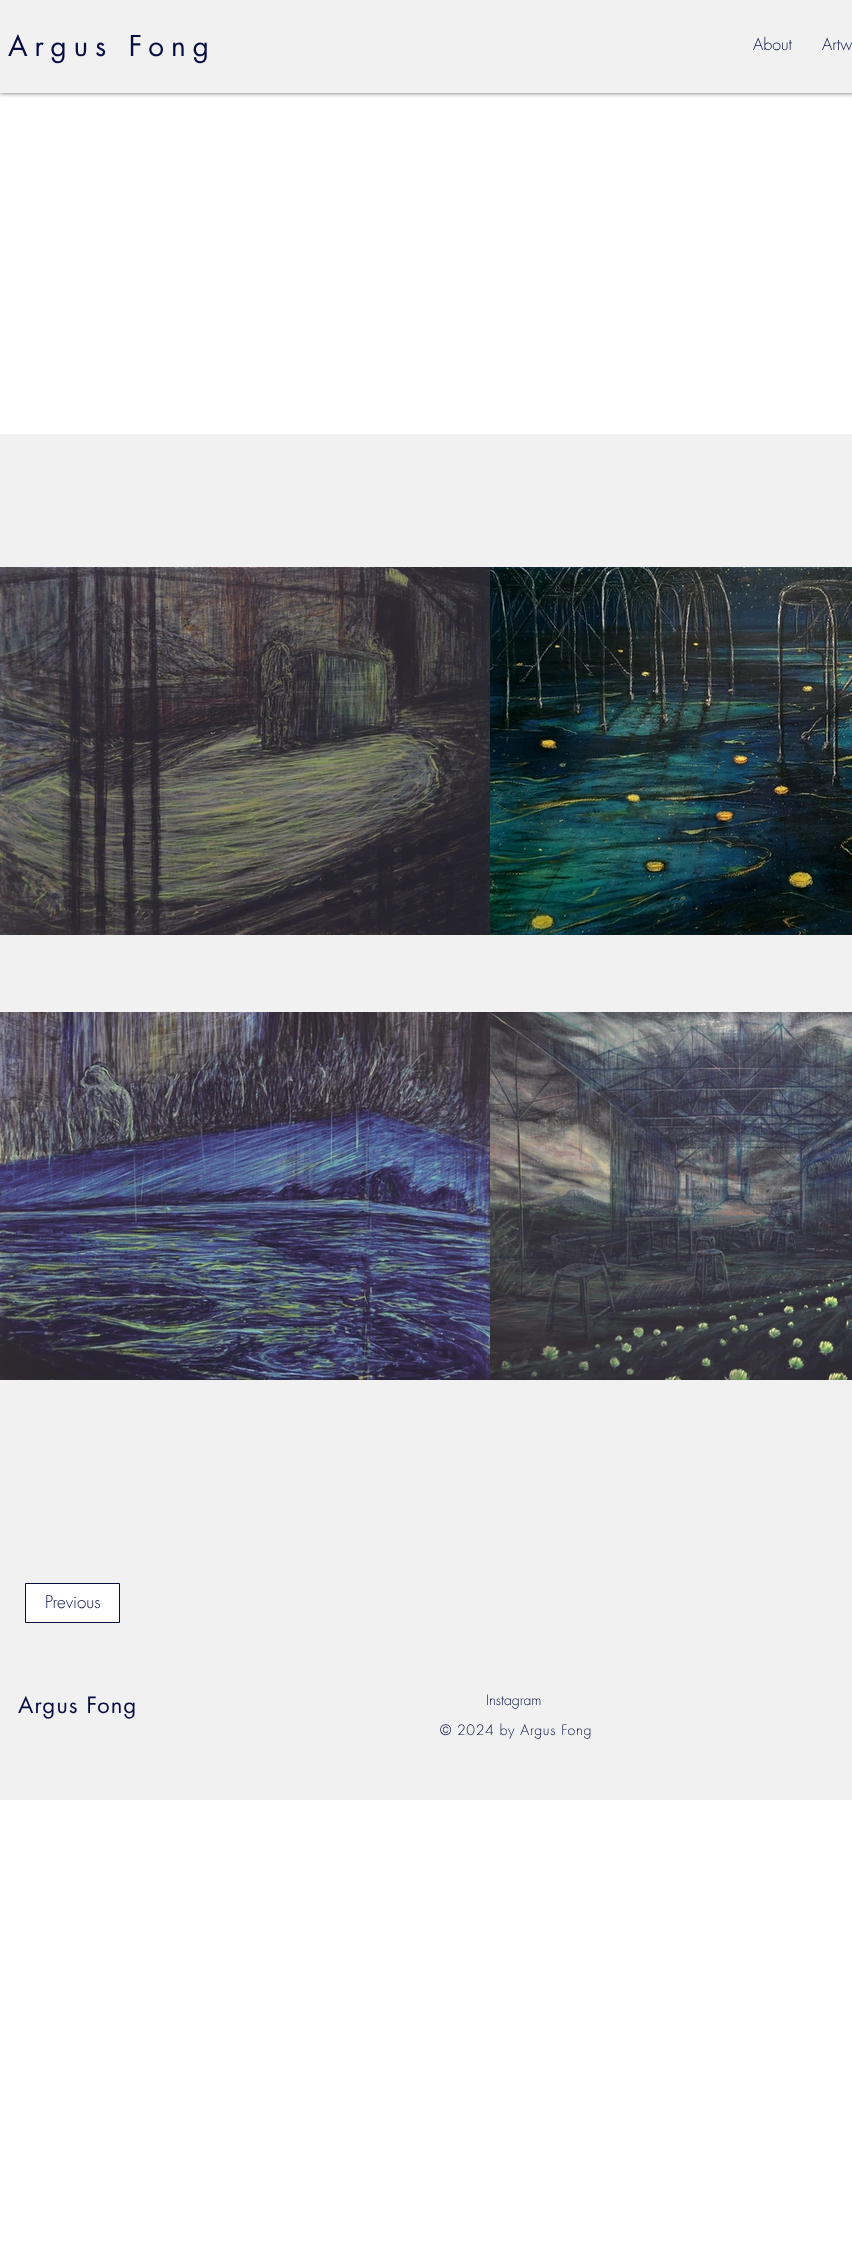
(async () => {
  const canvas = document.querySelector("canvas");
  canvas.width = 852;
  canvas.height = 2266;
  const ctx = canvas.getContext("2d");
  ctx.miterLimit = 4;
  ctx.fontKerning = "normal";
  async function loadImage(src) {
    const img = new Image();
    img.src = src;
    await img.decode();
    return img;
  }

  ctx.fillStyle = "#ffffff";
  ctx.fillRect(0, 0, 852, 2266);
  ctx.fillStyle = "rgba(0, 0, 0, 0.6)";
  ctx.filter = "blur(2.5px)";
  ctx.beginPath();
  ctx.rect(0, 0, 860, 93);
  ctx.fill();
  ctx.filter = "none";
  ctx.fillStyle = "#f1f1f1";
  ctx.fillRect(0, 0, 852, 93);
  ctx.fillRect(0, 434, 852, 1108);
  ctx.drawImage(await loadImage("img/1.png"), 0, 567, 490, 368);
  ctx.drawImage(await loadImage("img/2.png"), 0, 1012, 490, 368);
  ctx.drawImage(await loadImage("img/3.png"), 490, 567, 362, 368);
  ctx.drawImage(await loadImage("img/4.png"), 490, 1012, 362, 368);
  ctx.fillRect(0, 1542, 852, 119);
  ctx.fillStyle = "#ffffff";
  ctx.beginPath();
  ctx.rect(25.5, 1583.5, 94, 39);
  ctx.fill();
  ctx.strokeStyle = "#060d41";
  ctx.stroke();
  ctx.fillStyle = "#f1f1f1";
  ctx.fillRect(0, 1661, 852, 139);
  ctx.letterSpacing = "7px";
  ctx.font = "28px futura";
  ctx.fillStyle = "#060d41";
  ctx.fillText("Argus Fong", 8, 56);
  ctx.letterSpacing = "0px";
  ctx.font = "300 16px futura";
  ctx.fillText("About", 753, 50);
  ctx.fillText("Artw", 822, 50);
  ctx.font = "300 17px futura";
  ctx.fillText("Previous", 45, 1608);
  ctx.letterSpacing = "1.1px";
  ctx.font = "22px futura";
  ctx.fillText("Argus Fong", 18, 1713);
  ctx.letterSpacing = "0px";
  ctx.font = "300 14px futura";
  ctx.fillText("Instagram", 486, 1705);
  ctx.letterSpacing = "0.7px";
  ctx.fillText("© 2024 by Argus Fong", 440, 1735);
})();
